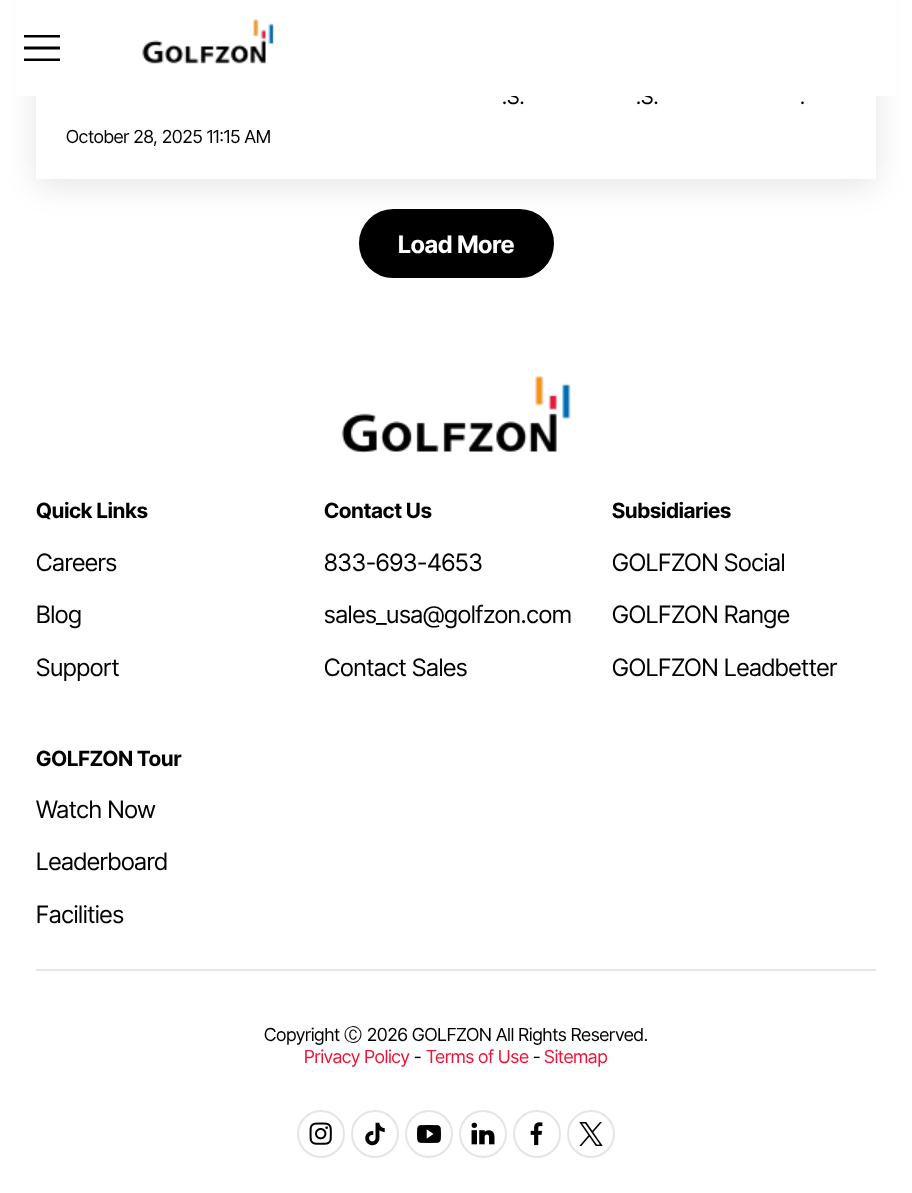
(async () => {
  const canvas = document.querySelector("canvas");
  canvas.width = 912;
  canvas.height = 1193;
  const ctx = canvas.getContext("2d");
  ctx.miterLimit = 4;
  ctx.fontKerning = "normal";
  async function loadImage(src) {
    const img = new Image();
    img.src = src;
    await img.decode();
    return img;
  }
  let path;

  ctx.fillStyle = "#ffffff";
  ctx.fillRect(0, 0, 912, 1193);
  ctx.fillStyle = "rgba(0, 0, 0, 0.1)";
  ctx.filter = "blur(15px)";
  ctx.beginPath();
  ctx.rect(36, -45, 840, 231);
  ctx.fill();
  ctx.filter = "none";
  ctx.fillStyle = "#ffffff";
  ctx.fillRect(36, 96, 840, 83);
  ctx.fillStyle = "#000000";
  ctx.beginPath();
  ctx.roundRect(360, 210, 193, 67, 33.5);
  ctx.fill();
  ctx.strokeStyle = "#000000";
  ctx.lineWidth = 2;
  ctx.stroke();
  ctx.drawImage(await loadImage("img/2.png"), 341, 376, 230, 77);
  ctx.fillStyle = "#e5e5e5";
  ctx.fillRect(36, 969, 840, 2);
  ctx.beginPath();
  ctx.arc(321, 1134, 23, 0, Math.PI * 2);
  ctx.strokeStyle = "#e5e5e5";
  ctx.stroke();
  ctx.drawImage(await loadImage("img/3.png"), 309, 1122, 23, 23);
  ctx.beginPath();
  ctx.arc(375, 1134, 23, 0, Math.PI * 2);
  ctx.stroke();
  ctx.drawImage(await loadImage("img/4.png"), 365, 1122, 20, 24);
  ctx.beginPath();
  ctx.arc(429, 1134, 23, 0, Math.PI * 2);
  ctx.stroke();
  ctx.drawImage(await loadImage("img/5.png"), 417, 1125, 24, 18);
  ctx.beginPath();
  ctx.arc(483, 1134, 23, 0, Math.PI * 2);
  ctx.stroke();
  ctx.drawImage(await loadImage("img/6.png"), 471, 1122, 24, 23);
  ctx.beginPath();
  ctx.arc(537, 1134, 23, 0, Math.PI * 2);
  ctx.stroke();
  ctx.drawImage(await loadImage("img/7.png"), 530, 1122, 13, 24);
  ctx.beginPath();
  ctx.arc(591, 1134, 23, 0, Math.PI * 2);
  ctx.stroke();
  ctx.drawImage(await loadImage("img/8.png"), 579, 1122, 24, 24);
  ctx.font = "21px Inter Tight";
  ctx.fillStyle = "#000000";
  ctx.fillText(".S.", 502, 104);
  ctx.fillText(".S.", 636, 104);
  ctx.fillStyle = "#ffffff";
  ctx.fillRect(17, 0, 878, 96);
  ctx.fillStyle = "#000000";
  path = new Path2D("M24 49.5V46.5H60V49.5ZM24 37.5V35H60V37.5ZM24 61V58.5H60V61Z");
  ctx.fill(path, "evenodd");
  ctx.drawImage(await loadImage("img/1.png"), 142, 19, 132, 45);
  ctx.fillText(".", 800, 104);
  ctx.font = "18px Inter Tight";
  ctx.fillText("October 28, 2025 11:15 AM", 66, 143);
  ctx.font = "bold 24px Inter Tight";
  ctx.fillStyle = "#ffffff";
  ctx.fillText("Load More", 398, 253);
  ctx.font = "bold 21px Inter Tight";
  ctx.fillStyle = "#000000";
  ctx.fillText("Quick Links", 36, 518);
  ctx.font = "24px Inter Tight";
  for (const [text, x, y] of [
    ["Careers", 36, 571],
    ["Blog", 36, 623],
    ["Support", 36, 676],
  ]) {
    ctx.fillText(text, x, y);
  }
  ctx.font = "bold 21px Inter Tight";
  ctx.fillText("Contact Us", 324, 518);
  ctx.font = "24px Inter Tight";
  for (const [text, x, y] of [
    ["833-693-4653", 324, 571],
    ["sales_usa@golfzon.com", 324, 623],
    ["Contact Sales", 324, 676],
  ]) {
    ctx.fillText(text, x, y);
  }
  ctx.font = "bold 21px Inter Tight";
  ctx.fillText("Subsidiaries", 612, 518);
  ctx.font = "24px Inter Tight";
  for (const [text, x, y] of [
    ["GOLFZON Social", 612, 571],
    ["GOLFZON Range", 612, 623],
    ["GOLFZON Leadbetter", 612, 676],
  ]) {
    ctx.fillText(text, x, y);
  }
  ctx.font = "bold 21px Inter Tight";
  ctx.fillText("GOLFZON Tour", 36, 766);
  ctx.font = "24px Inter Tight";
  for (const [text, x, y] of [
    ["Watch Now", 36, 818],
    ["Leaderboard", 36, 870],
    ["Facilities", 36, 923],
  ]) {
    ctx.fillText(text, x, y);
  }
  ctx.font = "18px Inter Tight";
  ctx.fillText("Copyright", 264, 1041);
  ctx.font = "500 18px WenQuanYi Zen Hei";
  ctx.fillText("Ⓒ", 344, 1041);
  ctx.font = "18px Inter Tight";
  ctx.fillText("2026 GOLFZON All Rights Reserved.", 367, 1041);
  ctx.fillStyle = "#ee1437";
  ctx.fillText("Privacy Policy", 304, 1063);
  ctx.fillStyle = "#000000";
  ctx.fillText("-", 414, 1063);
  ctx.fillStyle = "#ee1437";
  ctx.fillText("Terms of Use", 426, 1063);
  ctx.fillStyle = "#000000";
  ctx.fillText("-", 533, 1063);
  ctx.fillStyle = "#ee1437";
  ctx.fillText("Sitemap", 544, 1063);
})();
